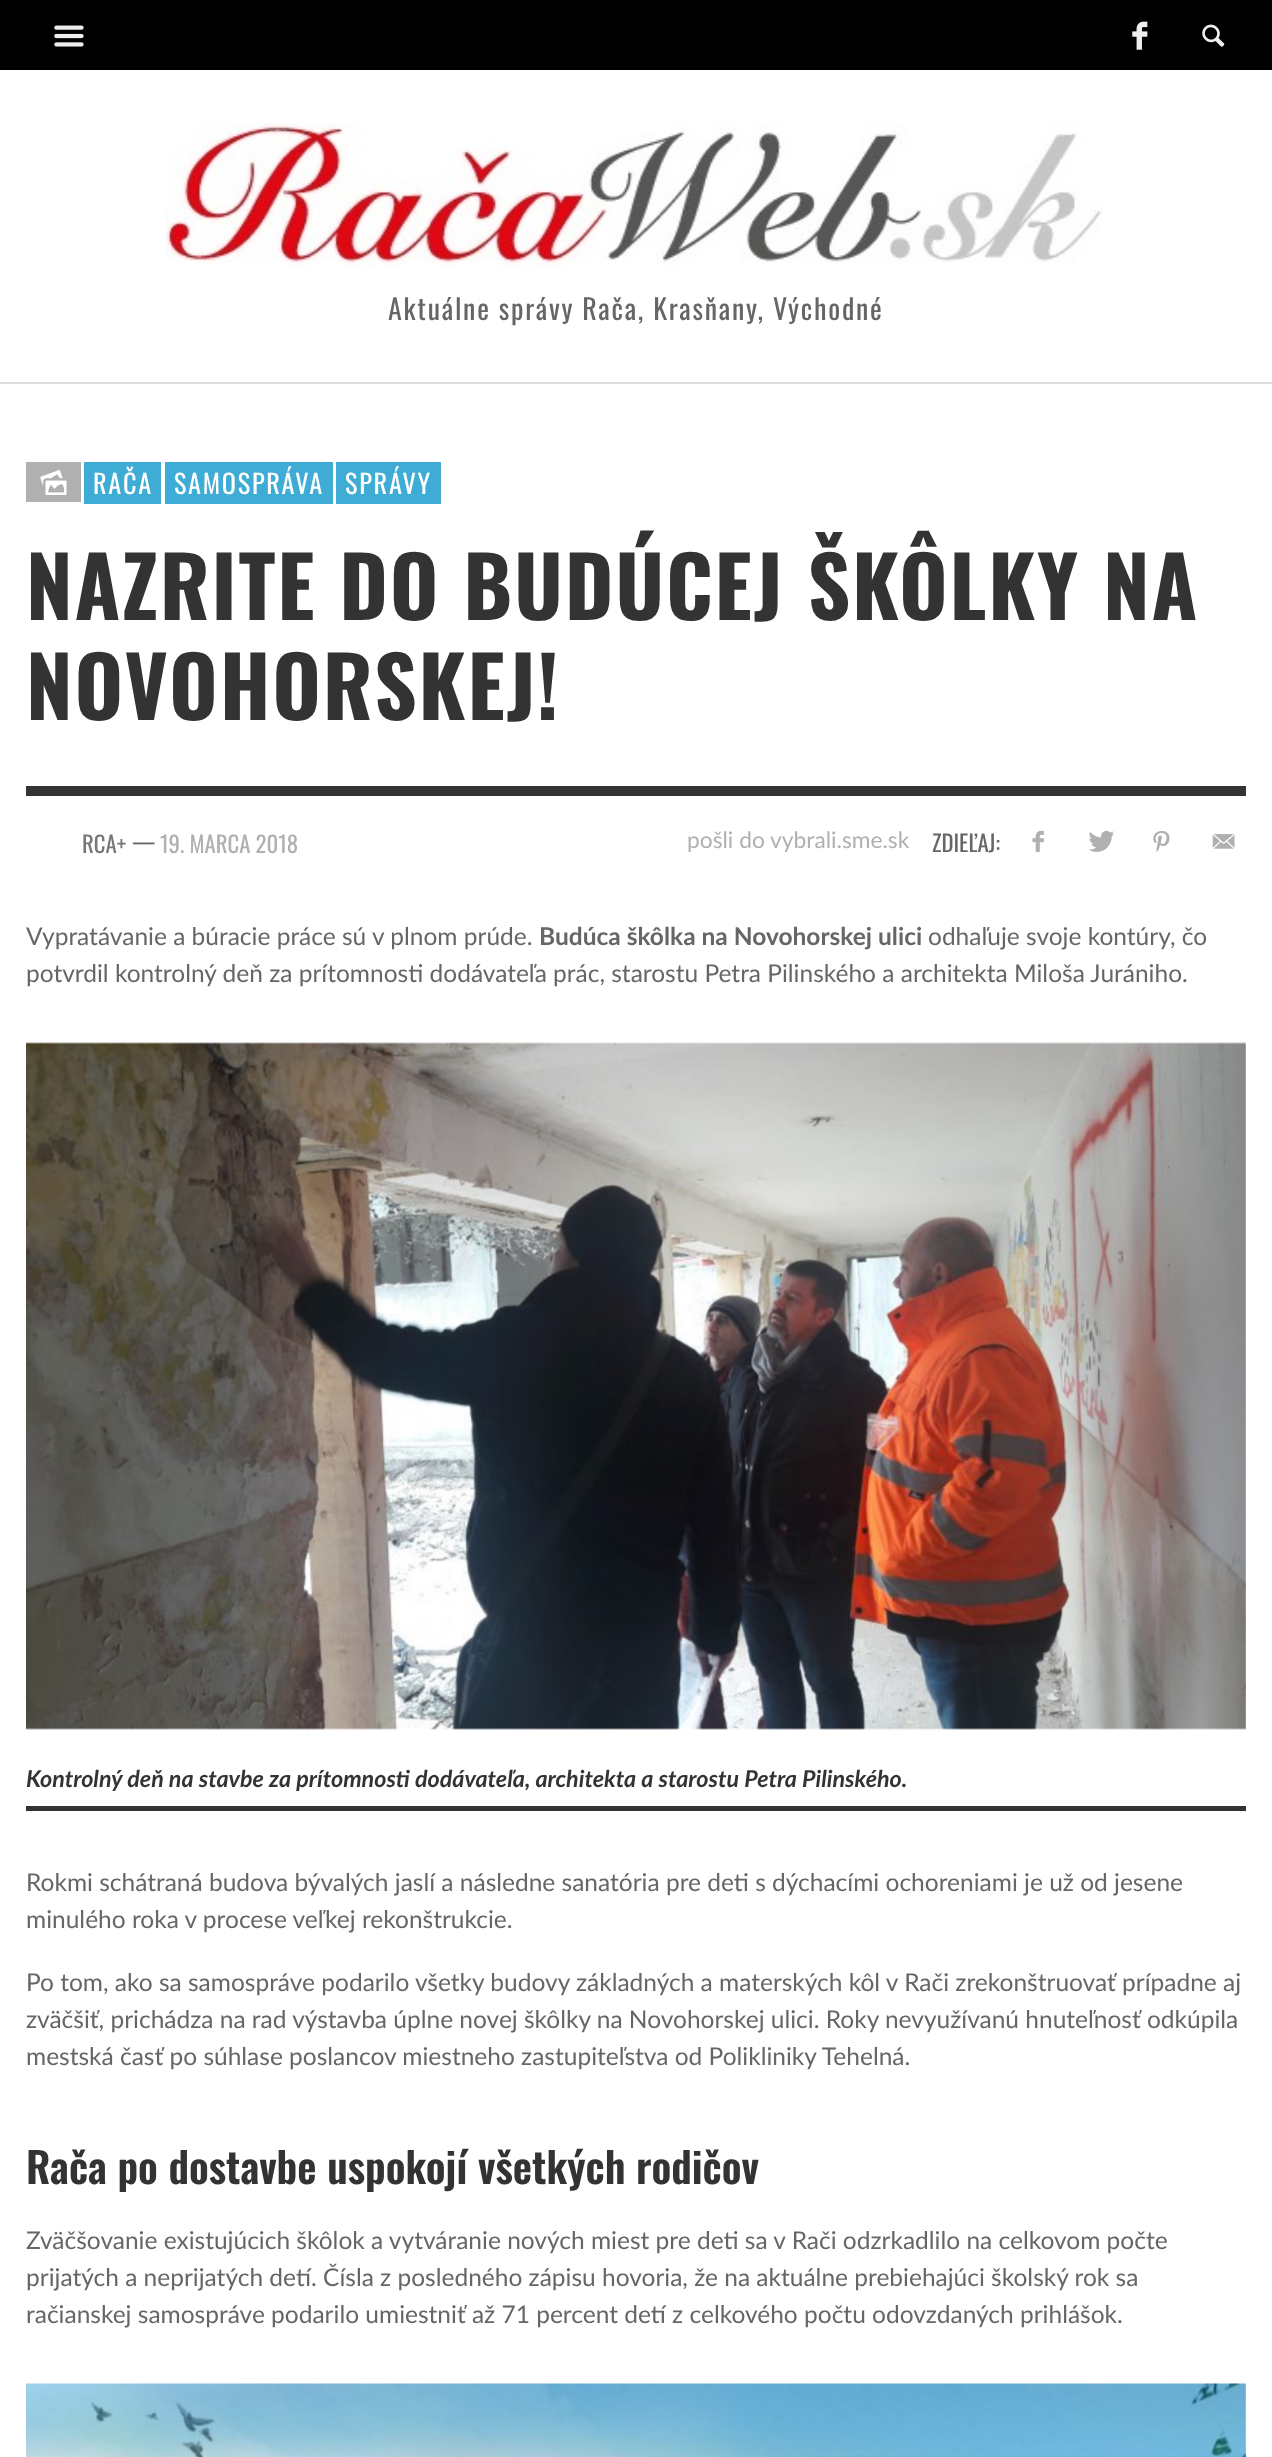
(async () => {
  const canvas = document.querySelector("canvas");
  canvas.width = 1272;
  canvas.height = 2457;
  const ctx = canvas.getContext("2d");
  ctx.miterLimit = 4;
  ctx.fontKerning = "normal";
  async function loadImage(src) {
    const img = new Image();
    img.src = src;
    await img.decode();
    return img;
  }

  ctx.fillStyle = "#ffffff";
  ctx.fillRect(0, 0, 1272, 2457);
  ctx.fillStyle = "#000000";
  ctx.fillRect(0, 0, 1272, 70);
  ctx.drawImage(await loadImage("img/1.png"), 54, 25, 30, 22);
  ctx.drawImage(await loadImage("img/2.png"), 1132, 21, 16, 29);
  ctx.drawImage(await loadImage("img/3.png"), 1202, 24, 23, 23);
  ctx.fillStyle = "#dddddd";
  ctx.fillRect(0, 382, 1272, 2);
  ctx.drawImage(await loadImage("img/4.png"), 166, 123, 936, 145);
  ctx.fillStyle = "#b0b0b0";
  ctx.fillRect(26, 462, 55, 40);
  ctx.drawImage(await loadImage("img/5.png"), 40, 470, 27, 25);
  for (const [x, y, w, h, color] of [
    [84, 462, 77, 42, "#3facd6"],
    [165, 462, 168, 42, "#3facd6"],
    [336, 462, 105, 42, "#3facd6"],
    [26, 786, 1220, 10, "#333333"],
  ]) {
    ctx.fillStyle = color;
    ctx.fillRect(x, y, w, h);
  }
  ctx.drawImage(await loadImage("img/6.png"), 1032, 830, 12, 22);
  ctx.drawImage(await loadImage("img/7.png"), 1088, 830, 26, 22);
  ctx.drawImage(await loadImage("img/8.png"), 1153, 830, 17, 22);
  ctx.drawImage(await loadImage("img/9.png"), 1212, 834, 23, 15);
  ctx.drawImage(await loadImage("img/10.png"), 26, 1042, 1220, 688);
  ctx.fillRect(26, 1806, 1220, 5);
  ctx.drawImage(await loadImage("img/11.png"), 26, 2383, 1220, 74);
  ctx.letterSpacing = "1.75px";
  ctx.font = "28px Oswald";
  ctx.fillStyle = "#666666";
  ctx.fillText("Aktuálne správy Rača, Krasňany, Východné", 388, 320);
  ctx.font = "26.25px Oswald";
  ctx.fillStyle = "#ffffff";
  for (const [text, x, y] of [
    ["RAČA", 93, 494],
    ["SAMOSPRÁVA", 174, 494],
    ["SPRÁVY", 345, 494],
  ]) {
    ctx.fillText(text, x, y);
  }
  ctx.font = "bold 83.25px Oswald";
  ctx.fillStyle = "#333333";
  ctx.fillText("NAZRITE DO BUDÚCEJ ŠKÔLKY NA", 26, 620);
  ctx.fillText("NOVOHORSKEJ!", 26, 720);
  ctx.letterSpacing = "0px";
  ctx.font = "22.75px Oswald";
  ctx.fillStyle = "#777777";
  ctx.fillText("RCA+", 82, 853);
  ctx.fillStyle = "#666666";
  ctx.fillText("—", 132, 850);
  ctx.fillStyle = "#b0b0b0";
  ctx.fillText("19. MARCA 2018", 160, 853);
  ctx.font = "22.75px Lato";
  ctx.fillText("pošli do vybrali.sme.sk", 687, 848);
  ctx.font = "22.75px Oswald";
  ctx.fillStyle = "#666666";
  ctx.fillText("ZDIEĽAJ:", 932, 852);
  ctx.font = "24.5px Lato";
  ctx.fillText("Vypratávanie a búracie práce sú v plnom prúde.", 26, 945);
  ctx.font = "bold 24.5px Lato";
  ctx.fillText("Budúca škôlka na Novohorskej ulici", 539, 945);
  ctx.font = "24.5px Lato";
  ctx.fillText("odhaľuje svoje kontúry, čo", 928, 945);
  ctx.fillText("potvrdil kontrolný deň za prítomnosti dodávateľa prác, starostu Petra Pilinského a architekta Miloša Jurániho.", 26, 982);
  ctx.font = "italic bold 23.3px Lato";
  ctx.fillStyle = "#333333";
  ctx.fillText("Kontrolný deň na stavbe za prítomnosti dodávateľa, architekta a starostu Petra Pilinského.", 26, 1787);
  ctx.font = "24.5px Lato";
  ctx.fillStyle = "#666666";
  for (const [text, x, y] of [
    ["Rokmi schátraná budova bývalých jaslí a následne sanatória pre deti s dýchacími ochoreniami je už od jesene", 26, 1891],
    ["minulého roka v procese veľkej rekonštrukcie.", 26, 1928],
    ["Po tom, ako sa samospráve podarilo všetky budovy základných a materských kôl v Rači zrekonštruovať prípadne aj", 26, 1991],
    ["zväčšiť, prichádza na rad výstavba úplne novej škôlky na Novohorskej ulici. Roky nevyužívanú hnuteľnosť odkúpila", 26, 2028],
    ["mestská časť po súhlase poslancov miestneho zastupiteľstva od Polikliniky Tehelná.", 26, 2065],
  ]) {
    ctx.fillText(text, x, y);
  }
  ctx.font = "600 42px Oswald";
  ctx.fillStyle = "#333333";
  ctx.fillText("Rača po dostavbe uspokojí všetkých rodičov", 26, 2184);
  ctx.font = "24.5px Lato";
  ctx.fillStyle = "#666666";
  for (const [text, x, y] of [
    ["Zväčšovanie existujúcich škôlok a vytváranie nových miest pre deti sa v Rači odzrkadlilo na celkovom počte", 26, 2249],
    ["prijatých a neprijatých detí. Čísla z posledného zápisu hovoria, že na aktuálne prebiehajúci školský rok sa", 26, 2286],
    ["račianskej samospráve podarilo umiestniť až 71 percent detí z celkového počtu odovzdaných prihlášok.", 26, 2323],
  ]) {
    ctx.fillText(text, x, y);
  }
})();
